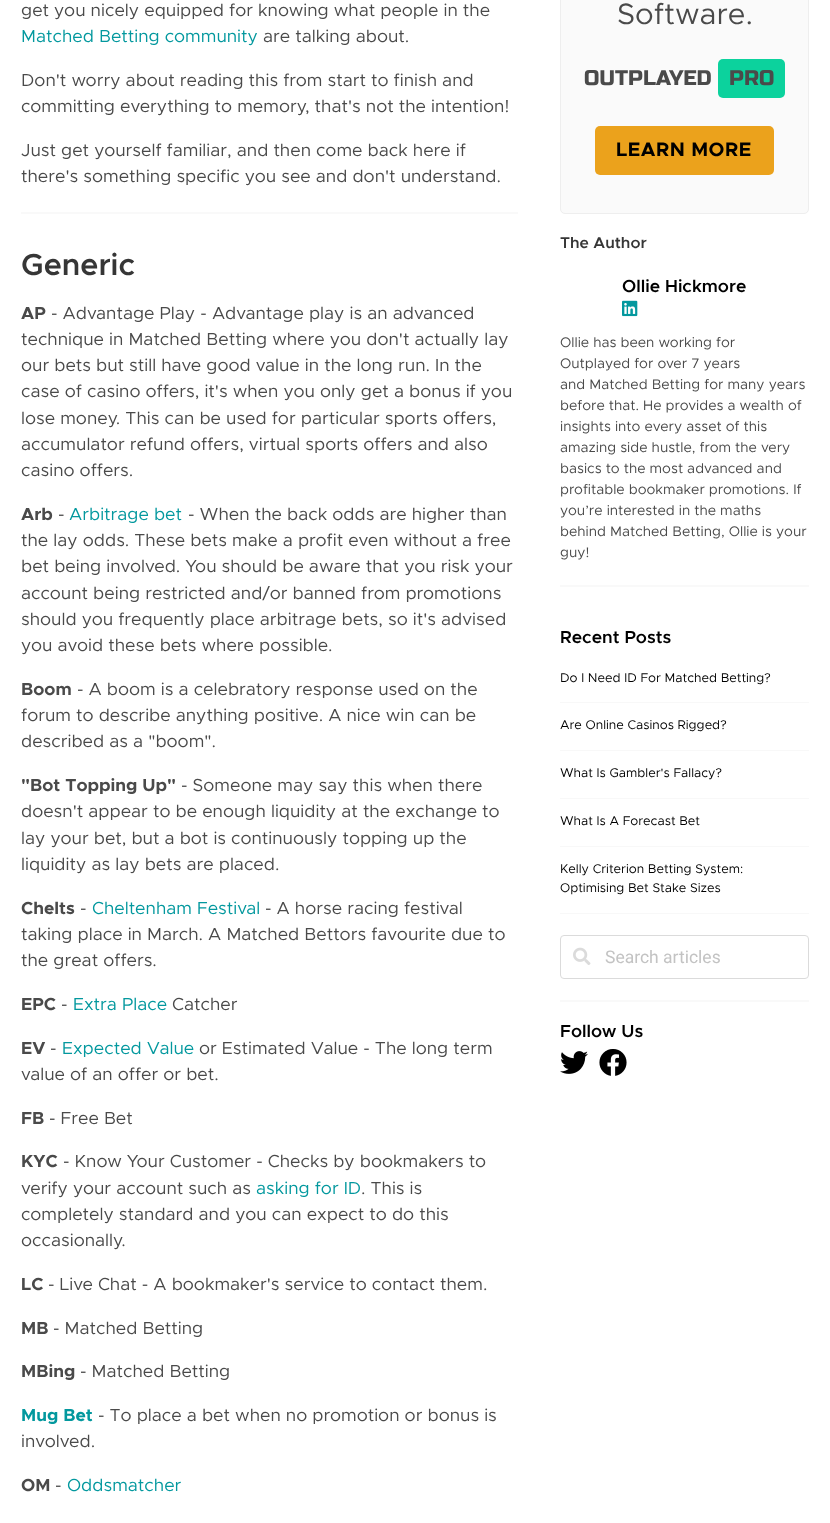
(async () => {
  const canvas = document.querySelector("canvas");
  canvas.width = 830;
  canvas.height = 1523;
  const ctx = canvas.getContext("2d");
  ctx.miterLimit = 4;
  ctx.fontKerning = "normal";
  async function loadImage(src) {
    const img = new Image();
    img.src = src;
    await img.decode();
    return img;
  }

  ctx.fillStyle = "#ffffff";
  ctx.fillRect(0, 0, 830, 1523);
  ctx.fillStyle = "#f9f9f9";
  ctx.fillRect(21, 212, 497, 2);
  ctx.fillStyle = "#fafafa";
  ctx.beginPath();
  ctx.roundRect(560.5, -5.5, 248, 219, 4.5);
  ctx.fill();
  ctx.strokeStyle = "#eeeeee";
  ctx.stroke();
  ctx.fillStyle = "#0cd29d";
  ctx.beginPath();
  ctx.roundRect(718, 59, 67, 39, 5);
  ctx.fill();
  ctx.fillStyle = "#eba21c";
  ctx.beginPath();
  ctx.roundRect(595, 126, 179, 49, 5);
  ctx.fill();
  ctx.drawImage(await loadImage("img/1.png"), 622, 300, 16, 17);
  for (const [x, y, w, h, color] of [
    [560, 585, 249, 2, "#f9f9f9"],
    [560, 702, 249, 1, "#f8f8f8"],
    [560, 750, 249, 1, "#f8f8f8"],
    [560, 798, 249, 1, "#f8f8f8"],
    [560, 846, 249, 1, "#f8f8f8"],
    [560, 913, 249, 1, "#f8f8f8"],
  ]) {
    ctx.fillStyle = color;
    ctx.fillRect(x, y, w, h);
  }
  ctx.beginPath();
  ctx.roundRect(560.5, 935.5, 248, 43, 3.5);
  ctx.strokeStyle = "#dbdbdb";
  ctx.stroke();
  ctx.drawImage(await loadImage("img/2.png"), 573, 947, 18, 18);
  ctx.fillStyle = "#f9f9f9";
  ctx.fillRect(560, 1000, 249, 2);
  ctx.drawImage(await loadImage("img/3.png"), 560, 1051, 28, 23);
  ctx.drawImage(await loadImage("img/4.png"), 599, 1049, 28, 27);
  ctx.font = "17.5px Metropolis";
  ctx.fillStyle = "#4a4a4a";
  ctx.fillText("get you nicely equipped for knowing what people in the", 21, 16);
  ctx.fillStyle = "#03989e";
  ctx.fillText("Matched Betting community", 21, 42);
  ctx.fillStyle = "#4a4a4a";
  for (const [text, x, y] of [
    ["are talking about.", 263, 42],
    ["Don't worry about reading this from start to finish and", 21, 86],
    ["committing everything to memory, that's not the intention!", 21, 112],
    ["Just get yourself familiar, and then come back here if", 21, 156],
    ["there's something specific you see and don't understand.", 21, 182],
  ]) {
    ctx.fillText(text, x, y);
  }
  ctx.font = "600 30.5px Metropolis";
  ctx.fillStyle = "#363636";
  ctx.fillText("Generic", 21, 275);
  ctx.font = "bold 17.5px Metropolis";
  ctx.fillStyle = "#4a4a4a";
  ctx.fillText("AP", 21, 319);
  ctx.font = "17.5px Metropolis";
  for (const [text, x, y] of [
    ["- Advantage Play - Advantage play is an advanced", 51, 319],
    ["technique in Matched Betting where you don't actually lay", 21, 345],
    ["our bets but still have good value in the long run. In the", 21, 371],
    ["case of casino offers, it's when you only get a bonus if you", 21, 397],
    ["lose money. This can be used for particular sports offers,", 21, 424],
    ["accumulator refund offers, virtual sports offers and also", 21, 450],
    ["casino offers.", 21, 476],
  ]) {
    ctx.fillText(text, x, y);
  }
  ctx.font = "bold 17.5px Metropolis";
  ctx.fillText("Arb", 21, 520);
  ctx.font = "17.5px Metropolis";
  ctx.fillText("-", 58, 520);
  ctx.fillStyle = "#03989e";
  ctx.fillText("Arbitrage bet", 69, 520);
  ctx.fillStyle = "#4a4a4a";
  for (const [text, x, y] of [
    ["- When the back odds are higher than", 188, 520],
    ["the lay odds. These bets make a profit even without a free", 21, 546],
    ["bet being involved. You should be aware that you risk your", 21, 572],
    ["account being restricted and/or banned from promotions", 21, 599],
    ["should you frequently place arbitrage bets, so it's advised", 21, 625],
    ["you avoid these bets where possible.", 21, 651],
  ]) {
    ctx.fillText(text, x, y);
  }
  ctx.font = "bold 17.5px Metropolis";
  ctx.fillText("Boom", 21, 695);
  ctx.font = "17.5px Metropolis";
  for (const [text, x, y] of [
    ["- A boom is a celebratory response used on the", 77, 695],
    ["forum to describe anything positive. A nice win can be", 21, 721],
    ["described as a \"boom\".", 21, 747],
  ]) {
    ctx.fillText(text, x, y);
  }
  ctx.font = "bold 17.5px Metropolis";
  ctx.fillText("\"Bot Topping Up\"", 21, 791);
  ctx.font = "17.5px Metropolis";
  for (const [text, x, y] of [
    ["- Someone may say this when there", 181, 791],
    ["doesn't appear to be enough liquidity at the exchange to", 21, 817],
    ["lay your bet, but a bot is continuously topping up the", 21, 844],
    ["liquidity as lay bets are placed.", 21, 870],
  ]) {
    ctx.fillText(text, x, y);
  }
  ctx.font = "bold 17.5px Metropolis";
  ctx.fillText("Chelts", 21, 914);
  ctx.font = "17.5px Metropolis";
  ctx.fillText("-", 80, 914);
  ctx.fillStyle = "#03989e";
  ctx.fillText("Cheltenham Festival", 92, 914);
  ctx.fillStyle = "#4a4a4a";
  for (const [text, x, y] of [
    ["- A horse racing festival", 265, 914],
    ["taking place in March. A Matched Bettors favourite due to", 21, 940],
    ["the great offers.", 21, 966],
  ]) {
    ctx.fillText(text, x, y);
  }
  ctx.font = "bold 17.5px Metropolis";
  ctx.fillText("EPC", 21, 1010);
  ctx.font = "17.5px Metropolis";
  ctx.fillText("-", 61, 1010);
  ctx.fillStyle = "#03989e";
  ctx.fillText("Extra Place", 73, 1010);
  ctx.fillStyle = "#4a4a4a";
  ctx.fillText("Catcher", 172, 1010);
  ctx.font = "bold 17.5px Metropolis";
  ctx.fillText("EV", 21, 1054);
  ctx.font = "17.5px Metropolis";
  ctx.fillText("-", 50, 1054);
  ctx.fillStyle = "#03989e";
  ctx.fillText("Expected Value", 62, 1054);
  ctx.fillStyle = "#4a4a4a";
  ctx.fillText("or Estimated Value - The long term", 199, 1054);
  ctx.fillText("value of an offer or bet.", 21, 1080);
  ctx.font = "bold 17.5px Metropolis";
  ctx.fillText("FB", 21, 1124);
  ctx.font = "17.5px Metropolis";
  ctx.fillText("- Free Bet", 49, 1124);
  ctx.font = "bold 17.5px Metropolis";
  ctx.fillText("KYC", 21, 1167);
  ctx.font = "17.5px Metropolis";
  ctx.fillText("- Know Your Customer - Checks by bookmakers to", 63, 1167);
  ctx.fillText("verify your account such as", 21, 1194);
  ctx.fillStyle = "#03989e";
  ctx.fillText("asking for ID", 256, 1194);
  ctx.fillStyle = "#4a4a4a";
  for (const [text, x, y] of [
    [". This is", 361, 1194],
    ["completely standard and you can expect to do this", 21, 1220],
    ["occasionally.", 21, 1246],
  ]) {
    ctx.fillText(text, x, y);
  }
  ctx.font = "bold 17.5px Metropolis";
  ctx.fillText("LC", 21, 1290);
  ctx.font = "17.5px Metropolis";
  ctx.fillText("- Live Chat - A bookmaker's service to contact them.", 48, 1290);
  ctx.font = "bold 17.5px Metropolis";
  ctx.fillText("MB", 21, 1334);
  ctx.font = "17.5px Metropolis";
  ctx.fillText("- Matched Betting", 53, 1334);
  ctx.font = "bold 17.5px Metropolis";
  ctx.fillText("MBing", 21, 1377);
  ctx.font = "17.5px Metropolis";
  ctx.fillText("- Matched Betting", 80, 1377);
  ctx.font = "bold 17.5px Metropolis";
  ctx.fillStyle = "#03989e";
  ctx.fillText("Mug Bet", 21, 1421);
  ctx.font = "17.5px Metropolis";
  ctx.fillStyle = "#4a4a4a";
  ctx.fillText("- To place a bet when no promotion or bonus is", 98, 1421);
  ctx.fillText("involved.", 21, 1447);
  ctx.font = "bold 17.5px Metropolis";
  ctx.fillText("OM", 21, 1491);
  ctx.font = "17.5px Metropolis";
  ctx.fillText("-", 55, 1491);
  ctx.fillStyle = "#03989e";
  ctx.fillText("Oddsmatcher", 67, 1491);
  ctx.font = "29.5px Metropolis";
  ctx.fillStyle = "#4a4a4a";
  ctx.fillText("Software.", 617, 24);
  ctx.font = "21px Russo One";
  ctx.fillText("OUTPLAYED", 584, 85);
  ctx.fillText("PRO", 729, 85);
  ctx.letterSpacing = "0.5px";
  ctx.font = "bold 19.5px Metropolis";
  ctx.fillStyle = "#000000";
  ctx.fillText("LEARN MORE", 616, 156);
  ctx.letterSpacing = "0px";
  ctx.font = "600 15.75px Metropolis";
  ctx.fillStyle = "#363636";
  ctx.fillText("The Author", 560, 248);
  ctx.font = "600 17.5px Metropolis";
  ctx.fillStyle = "#000000";
  ctx.fillText("Ollie Hickmore", 622, 292);
  ctx.font = "14px Metropolis";
  ctx.fillStyle = "#4a4a4a";
  for (const [text, x, y] of [
    ["Ollie has been working for", 560, 347],
    ["Outplayed for over 7 years", 560, 368],
    ["and Matched Betting for many years", 560, 389],
    ["before that. He provides a wealth of", 560, 410],
    ["insights into every asset of this", 560, 431],
    ["amazing side hustle, from the very", 560, 452],
    ["basics to the most advanced and", 560, 473],
    ["profitable bookmaker promotions. If", 560, 494],
    ["you’re interested in the maths", 560, 515],
    ["behind Matched Betting, Ollie is your", 560, 536],
    ["guy!", 560, 557],
  ]) {
    ctx.fillText(text, x, y);
  }
  ctx.font = "600 17.5px Metropolis";
  ctx.fillStyle = "#000000";
  ctx.fillText("Recent Posts", 560, 643);
  ctx.font = "12.6px Metropolis";
  for (const [text, x, y] of [
    ["Do I Need ID For Matched Betting?", 560, 682],
    ["Are Online Casinos Rigged?", 560, 729],
    ["What Is Gambler's Fallacy?", 560, 777],
    ["What Is A Forecast Bet", 560, 825],
    ["Kelly Criterion Betting System:", 560, 873],
    ["Optimising Bet Stake Sizes", 560, 892],
  ]) {
    ctx.fillText(text, x, y);
  }
  ctx.font = "17.5px Roboto";
  ctx.fillStyle = "#c3c3c3";
  ctx.fillText("Search articles", 605, 963);
  ctx.font = "600 17.5px Metropolis";
  ctx.fillStyle = "#000000";
  ctx.fillText("Follow Us", 560, 1037);
})();
